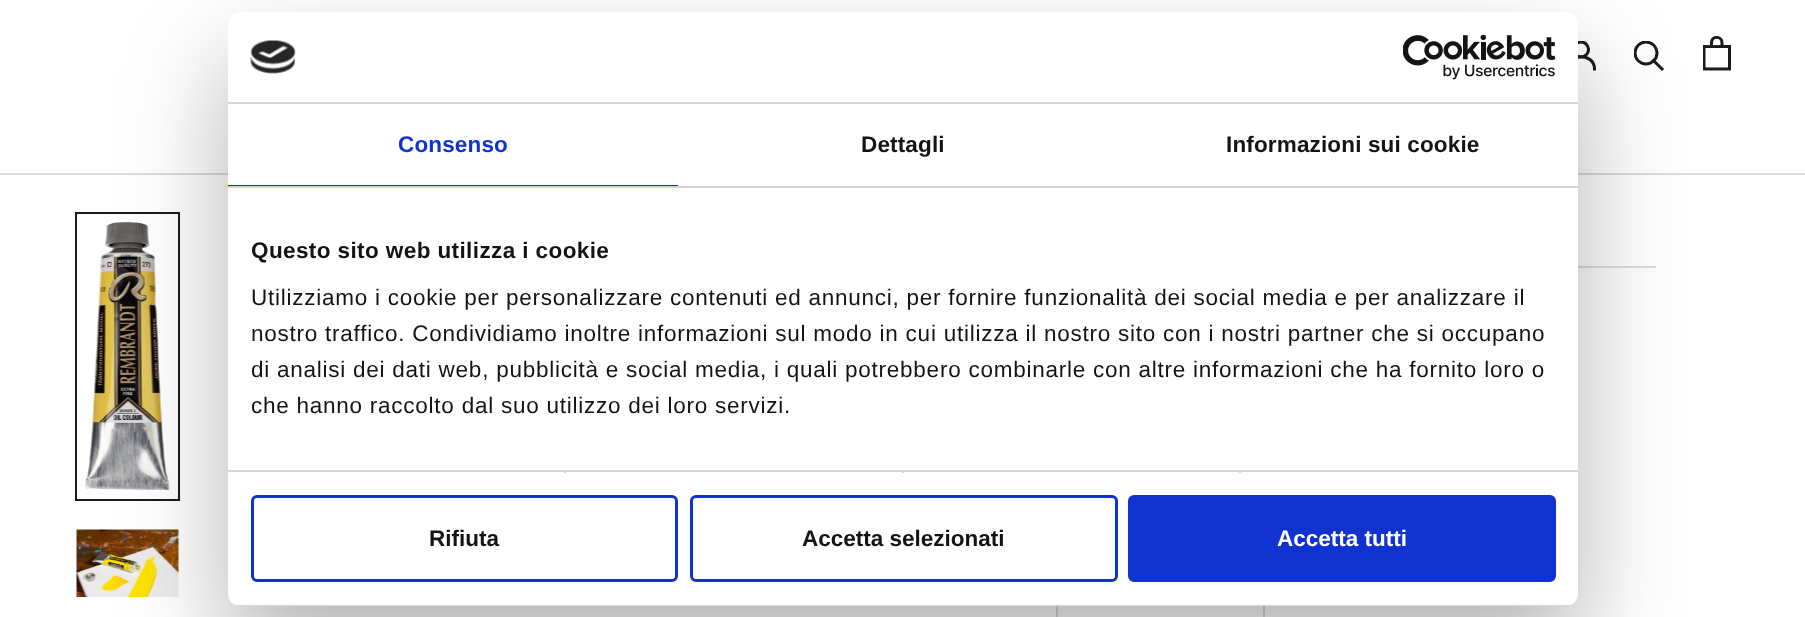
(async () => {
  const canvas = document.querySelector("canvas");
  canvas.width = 1805;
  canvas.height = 617;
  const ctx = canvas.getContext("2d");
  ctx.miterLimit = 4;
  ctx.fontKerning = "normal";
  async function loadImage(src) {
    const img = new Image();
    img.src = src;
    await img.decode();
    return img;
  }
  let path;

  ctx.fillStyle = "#ffffff";
  ctx.fillRect(0, 0, 1805, 617);
  ctx.fillStyle = "#dddddd";
  ctx.fillRect(0, 173, 1805, 2);
  path = new Path2D("M1567.5 69C1567.5 52.5 1594.5 52.5 1594.5 69");
  ctx.strokeStyle = "#1c1b1b";
  ctx.lineWidth = 3;
  ctx.lineCap = "square";
  ctx.stroke(path);
  ctx.save();
  ctx.beginPath();
  ctx.rect(1566, 41, 30, 30);
  ctx.clip();
  ctx.beginPath();
  ctx.arc(1581, 49.5, 7.5, 0, Math.PI * 2);
  ctx.stroke();
  ctx.restore();
  path = new Path2D("M1662 69L1653.5 60.5");
  ctx.stroke(path);
  ctx.save();
  ctx.beginPath();
  ctx.rect(1634, 41, 31, 31);
  ctx.clip();
  ctx.beginPath();
  ctx.arc(1646, 53, 11, 0, Math.PI * 2);
  ctx.stroke();
  ctx.restore();
  ctx.drawImage(await loadImage("img/1.png"), 1703, 36, 28, 35);
  ctx.lineWidth = 2;
  ctx.strokeRect(76, 213, 103, 287);
  ctx.drawImage(await loadImage("img/2.png"), 85, 222, 85, 269);
  ctx.drawImage(await loadImage("img/3.png"), 76, 529, 103, 68);
  ctx.fillRect(1578, 266, 78, 2);
  ctx.strokeStyle = "#dddddd";
  ctx.strokeRect(1057, 589, 207, 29);
  ctx.fillStyle = "rgba(0, 0, 0, 0.3)";
  ctx.filter = "blur(51px)";
  ctx.beginPath();
  ctx.roundRect(228, 60, 1350, 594, 12);
  ctx.fill();
  ctx.filter = "none";
  ctx.fillStyle = "#ffffff";
  ctx.beginPath();
  ctx.roundRect(228, 12, 1350, 594, 12);
  ctx.fill();
  ctx.fillStyle = "#d6d6d6";
  ctx.fillRect(228, 102, 1350, 2);
  ctx.drawImage(await loadImage("img/4.png"), 250, 40, 46, 34);
  ctx.drawImage(await loadImage("img/5.png"), 1403, 35, 153, 45);
  for (const [x, y, w, h, color] of [
    [228, 186, 1350, 2, "#d6d6d6"],
    [228, 185, 450, 1, "#1032cf"],
    [228, 470, 1350, 2, "#d6d6d6"],
    [564, 472, 2, 1, "#d6d6d6"],
    [902, 472, 2, 1, "#d6d6d6"],
    [1239, 472, 2, 1, "#d6d6d6"],
  ]) {
    ctx.fillStyle = color;
    ctx.fillRect(x, y, w, h);
  }
  ctx.save();
  ctx.beginPath();
  ctx.roundRect(228, 12, 1350, 594, 12);
  ctx.clip();
  ctx.fillRect(228, 605, 1350, 1);
  ctx.restore();
  ctx.beginPath();
  ctx.roundRect(252.5, 496.5, 424, 84, 4.5);
  ctx.strokeStyle = "#1032cf";
  ctx.lineWidth = 3;
  ctx.stroke();
  ctx.beginPath();
  ctx.roundRect(691.5, 496.5, 425, 84, 4.5);
  ctx.stroke();
  ctx.fillStyle = "#1032cf";
  ctx.beginPath();
  ctx.roundRect(1129.5, 496.5, 425, 84, 4.5);
  ctx.fill();
  ctx.stroke();
  ctx.letterSpacing = "0.15px";
  ctx.font = "bold 22.5px Liberation Sans";
  ctx.fillText("Consenso", 398, 152);
  ctx.fillStyle = "#141414";
  ctx.fillText("Dettagli", 861, 152);
  ctx.fillText("Informazioni sui cookie", 1226, 152);
  ctx.letterSpacing = "0.4px";
  ctx.fillText("Questo sito web utilizza i cookie", 251, 258);
  ctx.letterSpacing = "0.75px";
  ctx.font = "22.5px Liberation Sans";
  for (const [text, x, y] of [
    ["Utilizziamo i cookie per personalizzare contenuti ed annunci, per fornire funzionalità dei social media e per analizzare il", 251, 305],
    ["nostro traffico. Condividiamo inoltre informazioni sul modo in cui utilizza il nostro sito con i nostri partner che si occupano", 251, 341],
    ["di analisi dei dati web, pubblicità e social media, i quali potrebbero combinarle con altre informazioni che ha fornito loro o", 251, 377],
    ["che hanno raccolto dal suo utilizzo dei loro servizi.", 251, 413],
  ]) {
    ctx.fillText(text, x, y);
  }
  ctx.letterSpacing = "0px";
  ctx.font = "bold 22.5px Liberation Sans";
  ctx.fillText("Rifiuta", 429, 546);
  ctx.fillText("Accetta selezionati", 802, 546);
  ctx.fillStyle = "#ffffff";
  ctx.fillText("Accetta tutti", 1277, 546);
})();
